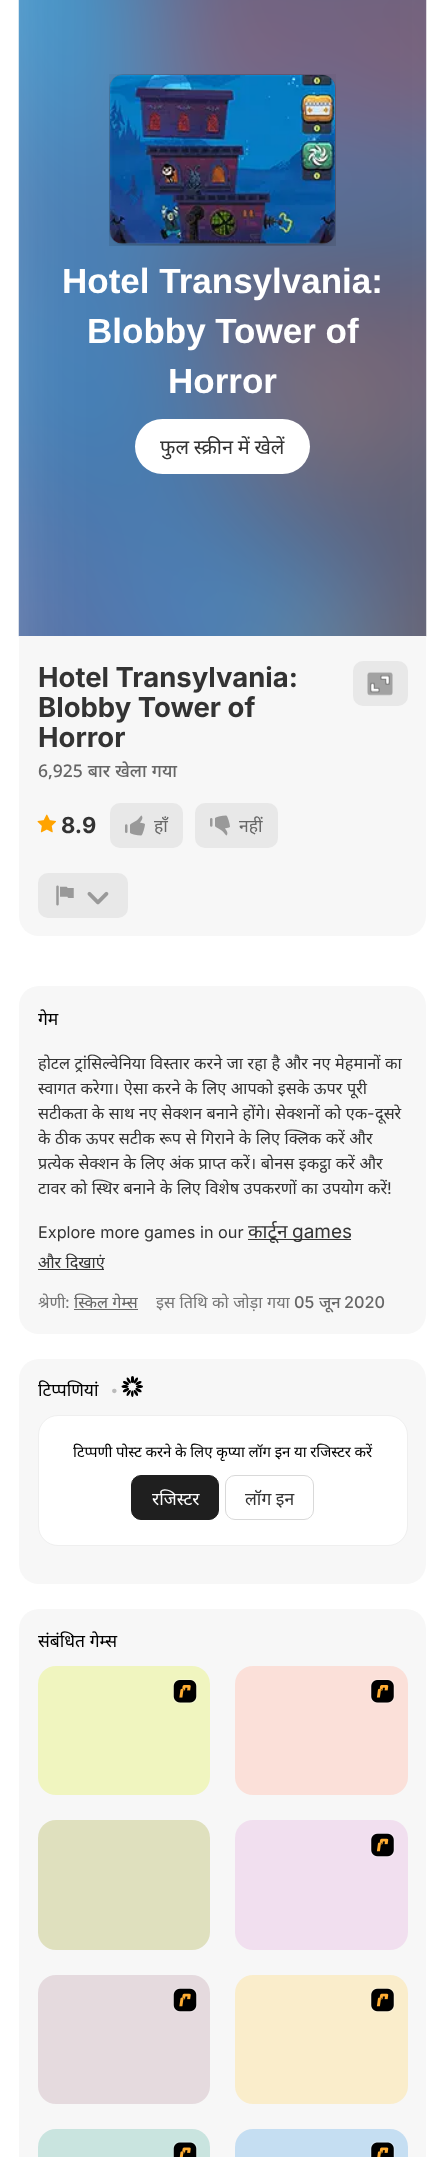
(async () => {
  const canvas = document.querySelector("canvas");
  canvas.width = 444;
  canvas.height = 2157;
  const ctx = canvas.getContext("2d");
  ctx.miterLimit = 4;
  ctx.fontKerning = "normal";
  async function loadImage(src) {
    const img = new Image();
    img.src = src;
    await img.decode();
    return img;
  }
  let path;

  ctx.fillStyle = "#ffffff";
  ctx.fillRect(0, 0, 444, 2157);
  ctx.drawImage(await loadImage("img/1.png"), 18, 0, 409, 637);
  ctx.beginPath();
  ctx.roundRect(109.5, 74.5, 226, 170, 13.5);
  ctx.strokeStyle = "rgba(0, 0, 0, 0.1)";
  ctx.stroke();
  ctx.drawImage(await loadImage("img/2.png"), 109, 74, 227, 172);
  ctx.beginPath();
  ctx.roundRect(135, 419, 175, 55, 27.5);
  ctx.fill();
  ctx.fillStyle = "#f7f7f7";
  ctx.beginPath();
  ctx.roundRect(19, 636, 407, 300, [0, 0, 20, 20]);
  ctx.fill();
  ctx.drawImage(await loadImage("img/3.png"), 37, 814, 19, 19);
  ctx.fillStyle = "#e8e8e8";
  ctx.beginPath();
  ctx.roundRect(110, 803, 73, 45, 10);
  ctx.fill();
  ctx.drawImage(await loadImage("img/4.png"), 125, 815, 20, 21);
  ctx.beginPath();
  ctx.roundRect(195, 803, 83, 45, 10);
  ctx.fill();
  ctx.drawImage(await loadImage("img/5.png"), 210, 815, 20, 21);
  ctx.beginPath();
  ctx.roundRect(353, 661, 55, 45, 10);
  ctx.fill();
  ctx.drawImage(await loadImage("img/6.png"), 367, 672, 26, 24);
  ctx.beginPath();
  ctx.roundRect(38, 873, 90, 45, 10);
  ctx.fill();
  ctx.drawImage(await loadImage("img/7.png"), 56, 885, 18, 21);
  ctx.drawImage(await loadImage("img/8.png"), 87, 891, 22, 14);
  ctx.fillStyle = "#f7f7f7";
  ctx.beginPath();
  ctx.roundRect(19, 986, 407, 348, 20);
  ctx.fill();
  for (const [x, y, w, h, color] of [
    [248, 1239, 103, 1, "#333333"],
    [38, 1269, 66, 1, "#333333"],
    [74, 1309, 64, 1, "#666666"],
  ]) {
    ctx.fillStyle = color;
    ctx.fillRect(x, y, w, h);
  }
  ctx.fillStyle = "#f7f7f7";
  ctx.beginPath();
  ctx.roundRect(19, 1359, 407, 225, 20);
  ctx.fill();
  ctx.fillStyle = "#000000";
  ctx.beginPath();
  ctx.roundRect(131, 1376, 3, 7, 1.5);
  ctx.fill();
  path = new Path2D("M137.5 1377.5C139.5 1378.5 136 1384 134 1383.5C132.5 1382.5 136 1376.5 137.5 1377.5Z");
  ctx.fill(path);
  path = new Path2D("M141.5 1381.5C142.5 1383 136.5 1386.5 135.5 1384.5C134.5 1383 140.5 1379.5 141.5 1381.5Z");
  ctx.fill(path);
  path = new Path2D("M143 1386.5C143 1388.5 136 1388.5 136 1386.5C136 1384.5 143 1384.5 143 1386.5ZM141.5 1392C140.5 1393.5 134.5 1390 135.5 1388.5C136.5 1387 142.5 1390 141.5 1392Z");
  ctx.fill(path);
  path = new Path2D("M137.5 1396C136 1396.5 132.5 1391 134 1390C136 1389 139.5 1395 137.5 1396Z");
  ctx.fill(path);
  path = new Path2D("M132.5 1397C130.5 1397 130.5 1390.5 132.5 1390.5C134 1390.5 134 1397 132.5 1397ZM127 1396C125.5 1395 128.5 1389 130.5 1390C132 1391 128.5 1396.5 127 1396Z");
  ctx.fill(path);
  path = new Path2D("M123 1392C122 1390 128 1387 129 1388.5C130 1390 124 1393.5 123 1392ZM121.5 1386.5C121.5 1384.5 128.5 1384.5 128.5 1386.5C128.5 1388.5 121.5 1388.5 121.5 1386.5Z");
  ctx.fill(path);
  path = new Path2D("M123 1381.5C124 1379.5 130 1383 129 1384.5C128 1386.5 122 1383 123 1381.5Z");
  ctx.fill(path);
  path = new Path2D("M127 1377.5C128.5 1376.5 132 1382.5 130.5 1383.5C128.5 1384 125.5 1378.5 127 1377.5Z");
  ctx.fill(path);
  ctx.fillStyle = "#ffffff";
  ctx.beginPath();
  ctx.roundRect(38.5, 1415.5, 369, 130, 19.5);
  ctx.fill();
  ctx.strokeStyle = "#efefef";
  ctx.stroke();
  ctx.fillStyle = "#1f1f1f";
  ctx.beginPath();
  ctx.roundRect(131.5, 1475.5, 87, 44, 9.5);
  ctx.fill();
  ctx.strokeStyle = "#1f1f1f";
  ctx.stroke();
  ctx.beginPath();
  ctx.roundRect(225.5, 1475.5, 88, 44, 9.5);
  ctx.strokeStyle = "#d9d9d9";
  ctx.stroke();
  ctx.fillStyle = "#f7f7f7";
  ctx.beginPath();
  ctx.roundRect(19, 1609, 407, 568, 20);
  ctx.fill();
  ctx.fillStyle = "#f0f5bf";
  ctx.beginPath();
  ctx.roundRect(38, 1666, 172, 129, 18);
  ctx.fill();
  ctx.drawImage(await loadImage("img/9.png"), 173, 1679, 25, 25);
  ctx.fillStyle = "#fbe0d9";
  ctx.beginPath();
  ctx.roundRect(235, 1666, 173, 129, 18);
  ctx.fill();
  ctx.drawImage(await loadImage("img/10.png"), 370, 1679, 25, 25);
  ctx.fillStyle = "#dfe0be";
  ctx.beginPath();
  ctx.roundRect(38, 1820, 172, 130, 18);
  ctx.fill();
  ctx.fillStyle = "#f1dfef";
  ctx.beginPath();
  ctx.roundRect(235, 1820, 173, 130, 18);
  ctx.fill();
  ctx.drawImage(await loadImage("img/11.png"), 370, 1833, 25, 25);
  ctx.fillStyle = "#e5dade";
  ctx.beginPath();
  ctx.roundRect(38, 1975, 172, 129, 18);
  ctx.fill();
  ctx.drawImage(await loadImage("img/12.png"), 173, 1988, 25, 25);
  ctx.fillStyle = "#faedcb";
  ctx.beginPath();
  ctx.roundRect(235, 1975, 173, 129, 18);
  ctx.fill();
  ctx.drawImage(await loadImage("img/13.png"), 370, 1988, 25, 25);
  ctx.fillStyle = "#c9e4df";
  ctx.beginPath();
  ctx.roundRect(38, 2129, 172, 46, 18);
  ctx.fill();
  ctx.drawImage(await loadImage("img/14.png"), 173, 2141, 25, 16);
  ctx.fillStyle = "#c5def2";
  ctx.beginPath();
  ctx.roundRect(235, 2129, 173, 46, 18);
  ctx.fill();
  ctx.drawImage(await loadImage("img/15.png"), 370, 2141, 25, 16);
  ctx.font = "bold 35px Liberation Sans";
  ctx.fillStyle = "#ffffff";
  for (const [text, x, y] of [
    ["Hotel Transylvania:", 62, 293],
    ["Blobby Tower of", 87, 343],
    ["Horror", 168, 393],
  ]) {
    ctx.fillText(text, x, y);
  }
  ctx.wordSpacing = "-0.5px";
  ctx.font = "20px Noto Sans";
  ctx.fillStyle = "#333333";
  ctx.fillText("फुल स्क्रीन में खेलें", 160, 454);
  ctx.wordSpacing = "0px";
  ctx.font = "bold 27.5px Inter";
  for (const [text, x, y] of [
    ["Hotel Transylvania:", 38, 687],
    ["Blobby Tower of", 38, 717],
    ["Horror", 38, 747],
  ]) {
    ctx.fillText(text, x, y);
  }
  ctx.wordSpacing = "0.5px";
  ctx.font = "500 17.5px Noto Sans";
  ctx.fillStyle = "#666666";
  ctx.fillText("6,925 बार खेला गया", 38, 777);
  ctx.wordSpacing = "0px";
  ctx.font = "bold 22px Inter";
  ctx.fillStyle = "#333333";
  ctx.fillText("8.9", 61, 833);
  ctx.font = "17.5px Noto Sans";
  ctx.fillStyle = "#666666";
  ctx.fillText("हाँ", 154, 832);
  ctx.fillText("नहीं", 239, 832);
  ctx.fillStyle = "#000000";
  ctx.fillText("गेम", 38, 1025);
  ctx.save();
  ctx.beginPath();
  ctx.rect(38, 1031, 370, 213);
  ctx.clip();
  ctx.wordSpacing = "0.3px";
  ctx.font = "16.25px Noto Sans";
  ctx.fillStyle = "#333333";
  ctx.fillText("होटल ट्रांसिल्वेनिया विस्तार करने जा रहा है और नए मेहमानों का", 38, 1069);
  ctx.restore();
  ctx.wordSpacing = "0.3px";
  ctx.font = "16.25px Noto Sans";
  ctx.fillStyle = "#333333";
  ctx.fillText("स्वागत करेगा। ऐसा करने के लिए आपको इसके ऊपर पूरी", 38, 1094);
  ctx.fillText("सटीकता के साथ नए सेक्शन बनाने होंगे। सेक्शनों को एक", 38, 1119);
  ctx.wordSpacing = "0px";
  ctx.font = "16.25px Inter";
  ctx.fillText("-", 367, 1119);
  ctx.font = "16.25px Noto Sans";
  ctx.fillText("दूसरे", 375, 1119);
  ctx.save();
  ctx.beginPath();
  ctx.rect(38, 1031, 370, 213);
  ctx.clip();
  ctx.wordSpacing = "0.3px";
  ctx.fillText("के ठीक ऊपर सटीक रूप से गिराने के लिए क्लिक करें और", 38, 1144);
  ctx.restore();
  ctx.wordSpacing = "0.3px";
  ctx.fillText("प्रत्येक सेक्शन के लिए अंक प्राप्त करें। बोनस इकट्ठा करें और", 38, 1169);
  ctx.fillText("टावर को स्थिर बनाने के लिए विशेष उपकरणों का उपयोग करें", 38, 1194);
  ctx.wordSpacing = "0px";
  ctx.font = "16.25px Inter";
  ctx.fillText("!", 387, 1194);
  ctx.fillText("Explore more games in our", 38, 1238);
  ctx.font = "19px Noto Sans";
  ctx.fillText("कार्टून", 248, 1238);
  ctx.font = "19px Inter";
  ctx.fillText("games", 292, 1238);
  ctx.font = "16.25px Noto Sans";
  ctx.fillText("और दिखाएं", 38, 1268);
  ctx.fillStyle = "#757575";
  ctx.fillText("श्रेणी", 38, 1308);
  ctx.font = "16.25px Inter";
  ctx.fillText(":", 65, 1308);
  ctx.font = "16.25px Noto Sans";
  ctx.fillStyle = "#666666";
  ctx.fillText("स्किल गेम्स", 74, 1308);
  ctx.wordSpacing = "0.3px";
  ctx.fillStyle = "#757575";
  ctx.fillText("इस तिथि को जोड़ा गया", 156, 1308);
  ctx.wordSpacing = "0px";
  ctx.font = "500 16.25px Inter";
  ctx.fillStyle = "#666666";
  ctx.fillText("05", 294, 1308);
  ctx.font = "500 16.25px Noto Sans";
  ctx.fillText("जून", 319, 1308);
  ctx.font = "500 16.25px Inter";
  ctx.fillText("2020", 344, 1308);
  ctx.font = "17.5px Noto Sans";
  ctx.fillStyle = "#000000";
  ctx.fillText("टिप्पणियां", 38, 1396);
  ctx.font = "bold 14px Inter";
  ctx.fillStyle = "#bbbbbb";
  ctx.fillText("•", 111, 1395);
  ctx.wordSpacing = "-0.25px";
  ctx.font = "15px Noto Sans";
  ctx.fillStyle = "#000000";
  ctx.fillText("टिप्पणी पोस्ट करने के लिए कृप्या लॉग इन या रजिस्टर करें", 73, 1457);
  ctx.wordSpacing = "0px";
  ctx.font = "17.5px Noto Sans";
  ctx.fillStyle = "#ffffff";
  ctx.fillText("रजिस्टर", 152, 1505);
  ctx.fillStyle = "#333333";
  ctx.fillText("लॉग इन", 245, 1505);
  ctx.fillStyle = "#000000";
  ctx.fillText("संबंधित गेम्स", 38, 1647);
})();
